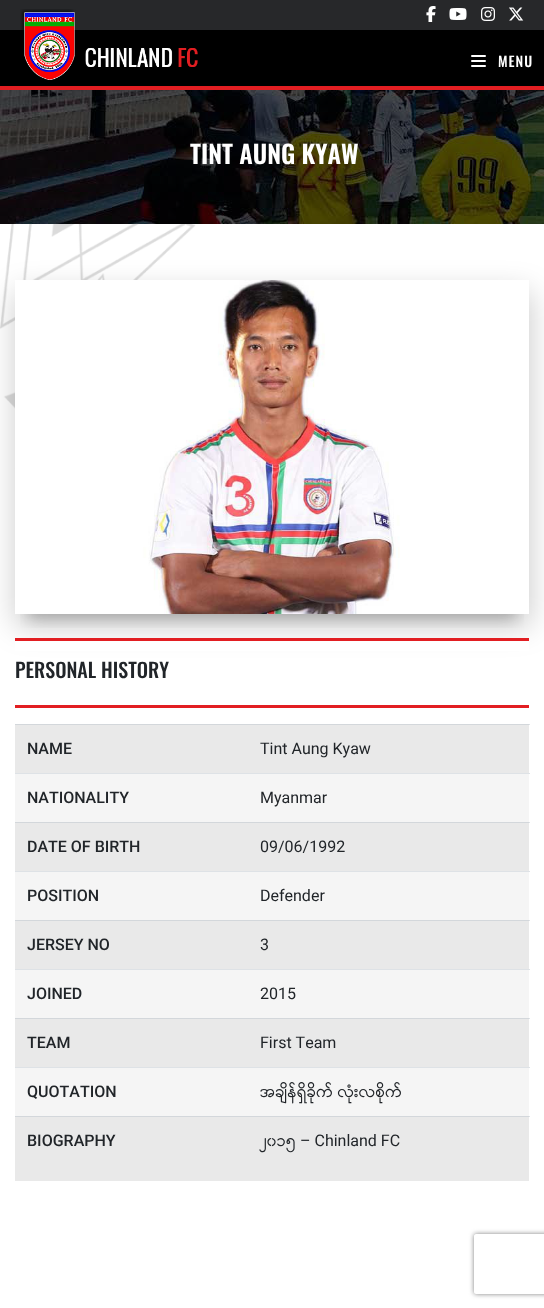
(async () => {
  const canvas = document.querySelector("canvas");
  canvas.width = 544;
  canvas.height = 1308;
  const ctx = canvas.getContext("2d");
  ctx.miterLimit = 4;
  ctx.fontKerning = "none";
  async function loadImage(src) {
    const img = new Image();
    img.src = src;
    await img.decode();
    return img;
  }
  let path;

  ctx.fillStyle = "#ffffff";
  ctx.fillRect(0, 0, 544, 1308);
  ctx.fillStyle = "#27282a";
  ctx.fillRect(0, 0, 544, 30);
  ctx.drawImage(await loadImage("img/1.png"), 426, 6, 10, 16);
  ctx.drawImage(await loadImage("img/2.png"), 449, 8, 18, 12);
  ctx.drawImage(await loadImage("img/3.png"), 481, 7, 14, 14);
  ctx.drawImage(await loadImage("img/4.png"), 509, 7, 15, 14);
  ctx.fillStyle = "#000000";
  ctx.fillRect(0, 30, 544, 56);
  ctx.fillStyle = "#e21e22";
  ctx.fillRect(0, 86, 544, 4);
  ctx.drawImage(await loadImage("img/5.png"), 20, 9, 178, 71);
  ctx.fillStyle = "#ffffff";
  ctx.beginPath();
  ctx.roundRect(471, 55, 15, 2, 1);
  ctx.fill();
  ctx.beginPath();
  ctx.roundRect(471, 60, 15, 2, 1);
  ctx.fill();
  ctx.beginPath();
  ctx.roundRect(471, 65, 15, 2, 1);
  ctx.fill();
  ctx.drawImage(await loadImage("img/6.png"), 0, 90, 544, 134);
  ctx.drawImage(await loadImage("img/7.png"), 0, 224, 196, 245);
  ctx.save();
  ctx.beginPath();
  ctx.rect(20, 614, 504, 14);
  ctx.clip();
  ctx.fillStyle = "rgba(0, 0, 0, 0.22)";
  ctx.filter = "blur(7.5px)";
  ctx.beginPath();
  ctx.rect(28, 310, 488, 308);
  ctx.fill();
  ctx.filter = "none";
  ctx.restore();
  ctx.save();
  path = new Path2D("M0 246H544V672H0ZM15 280H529V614H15Z");
  ctx.clip(path, "evenodd");
  ctx.fillStyle = "rgba(0, 0, 0, 0.21)";
  ctx.filter = "blur(15px)";
  ctx.beginPath();
  ctx.rect(16, 292, 514, 334);
  ctx.fill();
  ctx.filter = "none";
  ctx.restore();
  ctx.drawImage(await loadImage("img/8.png"), 15, 280, 385, 334);
  for (const [x, y, w, h, color] of [
    [15, 641, 514, 10, "#ffffff"],
    [15, 638, 514, 3, "#e21e22"],
    [15, 705, 514, 3, "#e21e22"],
    [15, 774, 514, 342, "#f5f5f5"],
    [15, 1117, 514, 64, "#e9e9e9"],
    [15, 1019, 514, 48, "#e9e9e9"],
    [15, 921, 514, 48, "#e9e9e9"],
    [15, 823, 514, 48, "#e9e9e9"],
    [15, 725, 514, 48, "#e9e9e9"],
    [529, 724, 1, 1, "#dee2e6"],
    [15, 724, 514, 1, "#d3d7db"],
    [15, 773, 515, 1, "#dee2e6"],
    [529, 822, 1, 1, "#dee2e6"],
    [15, 822, 514, 1, "#d3d7db"],
    [15, 871, 515, 1, "#dee2e6"],
    [529, 920, 1, 1, "#dee2e6"],
    [15, 920, 514, 1, "#d3d7db"],
    [15, 969, 515, 1, "#dee2e6"],
    [529, 1018, 1, 1, "#dee2e6"],
    [15, 1018, 514, 1, "#d3d7db"],
    [15, 1067, 515, 1, "#dee2e6"],
    [529, 1116, 1, 1, "#dee2e6"],
    [15, 1116, 514, 1, "#d3d7db"],
  ]) {
    ctx.fillStyle = color;
    ctx.fillRect(x, y, w, h);
  }
  ctx.save();
  path = new Path2D("M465 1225H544V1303H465ZM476 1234H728C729 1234 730 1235 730 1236V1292C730 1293 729 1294 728 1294H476C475 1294 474 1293 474 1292V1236C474 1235 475 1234 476 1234Z");
  ctx.clip(path, "evenodd");
  ctx.fillStyle = "#808080";
  ctx.filter = "blur(2.5px)";
  ctx.beginPath();
  ctx.roundRect(474, 1234, 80, 60, 2);
  ctx.fill();
  ctx.filter = "none";
  ctx.restore();
  ctx.letterSpacing = "1px";
  ctx.font = "500 14px Oswald";
  ctx.fillStyle = "#ffffff";
  ctx.fillText("MENU", 498, 67);
  ctx.letterSpacing = "0px";
  ctx.font = "600 25px Oswald";
  ctx.fillText("TINT AUNG KYAW", 190, 164);
  ctx.font = "500 20px Oswald";
  ctx.fillStyle = "#212529";
  ctx.fillText("PERSONAL HISTORY", 15, 678);
  ctx.font = "500 16px Roboto";
  ctx.fillText("NAME", 27, 754);
  ctx.font = "16px Roboto";
  ctx.fillText("Tint Aung Kyaw", 260, 754);
  ctx.font = "500 16px Roboto";
  ctx.fillText("NATIONALITY", 27, 803);
  ctx.font = "16px Roboto";
  ctx.fillText("Myanmar", 260, 803);
  ctx.font = "500 16px Roboto";
  ctx.fillText("DATE OF BIRTH", 27, 852);
  ctx.font = "16px Roboto";
  ctx.fillText("09/06/1992", 260, 852);
  ctx.font = "500 16px Roboto";
  ctx.fillText("POSITION", 27, 901);
  ctx.font = "16px Roboto";
  ctx.fillText("Defender", 260, 901);
  ctx.font = "500 16px Roboto";
  ctx.fillText("JERSEY NO", 27, 950);
  ctx.font = "16px Roboto";
  ctx.fillText("3", 260, 950);
  ctx.font = "500 16px Roboto";
  ctx.fillText("JOINED", 27, 999);
  ctx.font = "16px Roboto";
  ctx.fillText("2015", 260, 999);
  ctx.font = "500 16px Roboto";
  ctx.fillText("TEAM", 27, 1048);
  ctx.font = "16px Roboto";
  ctx.fillText("First Team", 260, 1048);
  ctx.font = "500 16px Roboto";
  ctx.fillText("QUOTATION", 27, 1097);
  ctx.font = "16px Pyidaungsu";
  ctx.fillText("အချိန်ရှိခိုက် လုံးလစိုက်", 260, 1097);
  ctx.font = "500 16px Roboto";
  ctx.fillText("BIOGRAPHY", 27, 1146);
  ctx.font = "16px Pyidaungsu";
  ctx.fillText("၂၀၁၅", 260, 1146);
  ctx.font = "16px Roboto";
  ctx.fillText("– Chinland FC", 300, 1146);
})();
